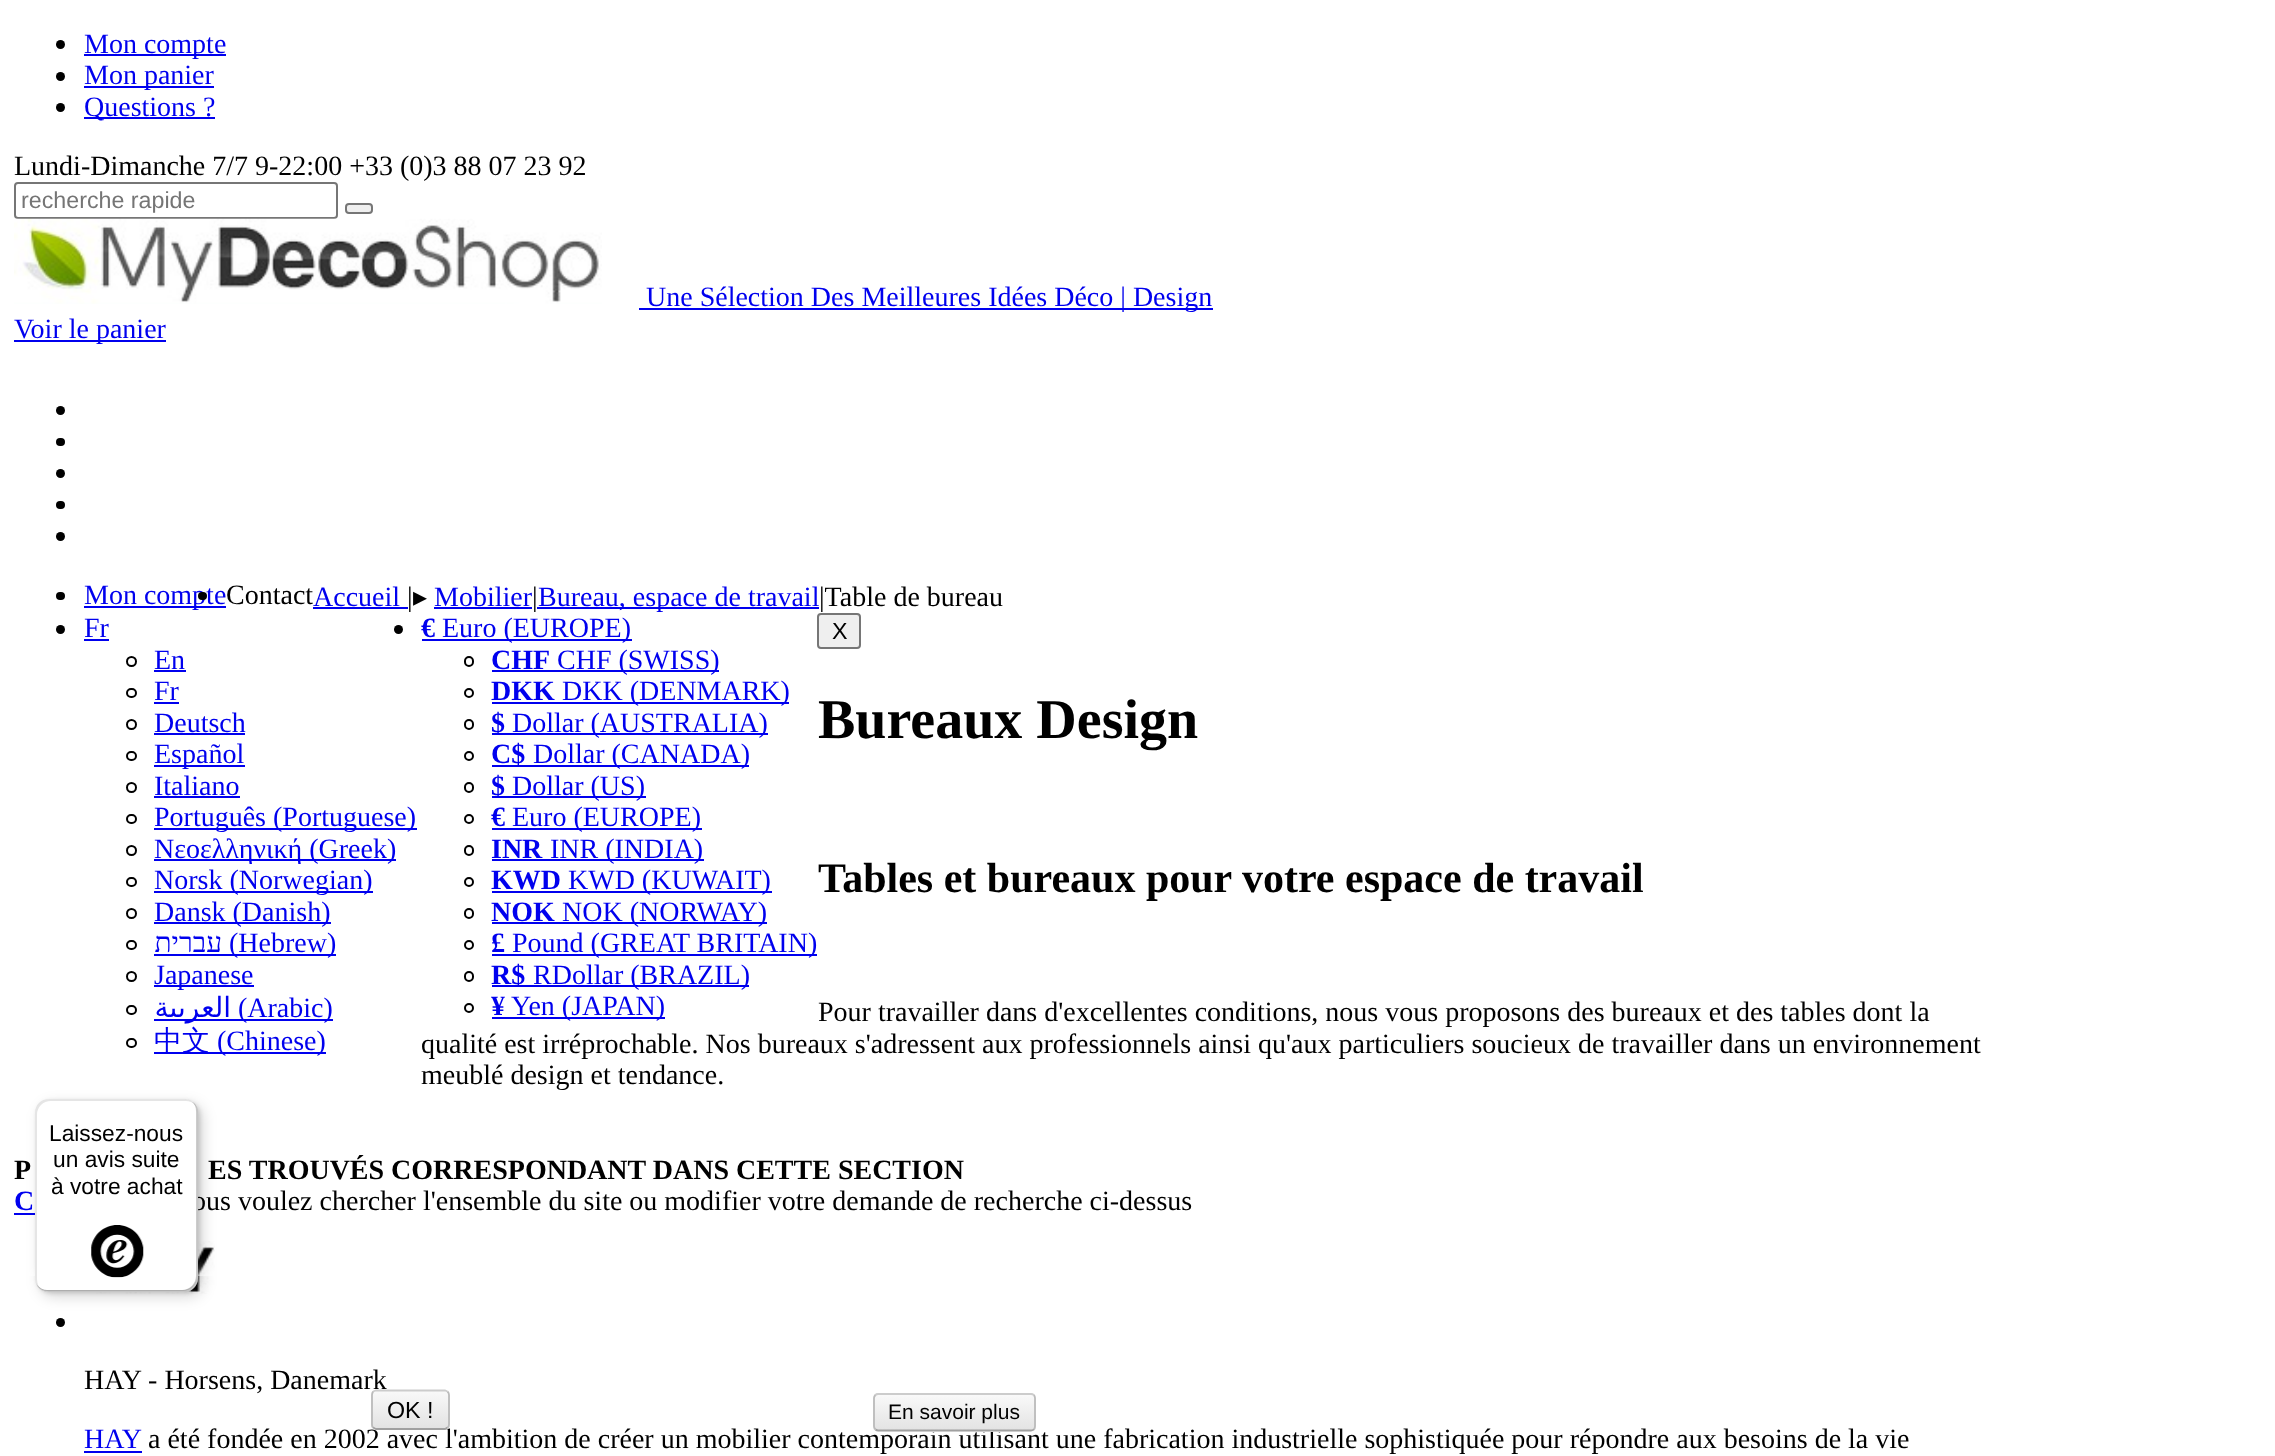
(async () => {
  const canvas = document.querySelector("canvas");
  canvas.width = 2275;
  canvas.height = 1456;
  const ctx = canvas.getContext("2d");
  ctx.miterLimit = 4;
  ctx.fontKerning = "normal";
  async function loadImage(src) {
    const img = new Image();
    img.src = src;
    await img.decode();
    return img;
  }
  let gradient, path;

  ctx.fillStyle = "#ffffff";
  ctx.fillRect(0, 0, 2275, 1456);
  ctx.fillStyle = "#000000";
  ctx.beginPath();
  ctx.arc(60.5, 44.5, 4.5, 0, Math.PI * 2);
  ctx.fill();
  ctx.fillStyle = "#0000ee";
  ctx.fillRect(84, 54, 142, 2);
  ctx.fillStyle = "#000000";
  ctx.beginPath();
  ctx.arc(60.5, 76.5, 4.5, 0, Math.PI * 2);
  ctx.fill();
  ctx.fillStyle = "#0000ee";
  ctx.fillRect(84, 86, 130, 2);
  ctx.fillStyle = "#000000";
  ctx.beginPath();
  ctx.arc(60.5, 107.5, 4.5, 0, Math.PI * 2);
  ctx.fill();
  ctx.fillStyle = "#0000ee";
  ctx.fillRect(84, 117, 131, 2);
  ctx.beginPath();
  ctx.roundRect(15, 183, 322, 35, 3);
  ctx.strokeStyle = "#767676";
  ctx.lineWidth = 2;
  ctx.stroke();
  ctx.fillStyle = "#efefef";
  ctx.beginPath();
  ctx.roundRect(346, 204, 26, 9, 3);
  ctx.fill();
  ctx.stroke();
  ctx.drawImage(await loadImage("img/1.png"), 14, 218, 588, 86);
  ctx.fillStyle = "#0000ee";
  ctx.fillRect(639, 308, 574, 2);
  ctx.fillRect(14, 340, 152, 2);
  ctx.fillStyle = "#000000";
  ctx.beginPath();
  ctx.arc(60.5, 410.5, 4.5, 0, Math.PI * 2);
  ctx.fill();
  ctx.beginPath();
  ctx.roundRect(56, 438, 9, 8, 4);
  ctx.fill();
  ctx.beginPath();
  ctx.arc(60.5, 473.5, 4.5, 0, Math.PI * 2);
  ctx.fill();
  ctx.beginPath();
  ctx.roundRect(56, 501, 9, 8, 4);
  ctx.fill();
  ctx.beginPath();
  ctx.arc(60.5, 536.5, 4.5, 0, Math.PI * 2);
  ctx.fill();
  ctx.beginPath();
  ctx.roundRect(56, 592, 9, 8, 4);
  ctx.fill();
  for (const [x, y, w, h, color] of [
    [84, 606, 142, 2, "#0000ee"],
    [313, 607, 95, 2, "#0000ee"],
    [434, 607, 98, 2, "#0000ee"],
    [537, 607, 282, 2, "#0000ee"],
  ]) {
    ctx.fillStyle = color;
    ctx.fillRect(x, y, w, h);
  }
  ctx.fillStyle = "#000000";
  ctx.beginPath();
  ctx.arc(60.5, 629.5, 4.5, 0, Math.PI * 2);
  ctx.fill();
  ctx.fillStyle = "#0000ee";
  ctx.fillRect(84, 639, 25, 2);
  ctx.beginPath();
  ctx.arc(131.5, 661.5, 4.5, 0, Math.PI * 2);
  ctx.strokeStyle = "#000000";
  ctx.stroke();
  ctx.fillRect(154, 670, 32, 2);
  ctx.beginPath();
  ctx.roundRect(127, 689, 9, 8, 4);
  ctx.stroke();
  ctx.fillRect(154, 702, 25, 2);
  ctx.beginPath();
  ctx.arc(131.5, 724.5, 4.5, 0, Math.PI * 2);
  ctx.stroke();
  ctx.fillRect(154, 733, 91, 2);
  ctx.beginPath();
  ctx.roundRect(127, 752, 9, 8, 4);
  ctx.stroke();
  ctx.fillRect(154, 765, 91, 2);
  ctx.beginPath();
  ctx.arc(131.5, 787.5, 4.5, 0, Math.PI * 2);
  ctx.stroke();
  ctx.fillRect(154, 796, 86, 2);
  ctx.beginPath();
  ctx.roundRect(127, 815, 9, 8, 4);
  ctx.stroke();
  ctx.fillRect(154, 828, 263, 2);
  ctx.beginPath();
  ctx.arc(131.5, 850.5, 4.5, 0, Math.PI * 2);
  ctx.stroke();
  ctx.fillRect(154, 859, 242, 2);
  ctx.beginPath();
  ctx.roundRect(127, 878, 9, 8, 4);
  ctx.stroke();
  ctx.fillRect(154, 891, 219, 2);
  ctx.beginPath();
  ctx.arc(131.5, 913.5, 4.5, 0, Math.PI * 2);
  ctx.stroke();
  ctx.fillRect(154, 922, 177, 2);
  ctx.beginPath();
  ctx.roundRect(127, 941, 9, 8, 4);
  ctx.stroke();
  ctx.fillRect(154, 954, 182, 2);
  ctx.beginPath();
  ctx.arc(131.5, 976.5, 4.5, 0, Math.PI * 2);
  ctx.stroke();
  ctx.fillRect(154, 985, 100, 2);
  ctx.beginPath();
  ctx.roundRect(127, 1006, 9, 8, 4);
  ctx.stroke();
  ctx.fillRect(154, 1019, 179, 2);
  ctx.beginPath();
  ctx.roundRect(127, 1039, 9, 8, 4);
  ctx.stroke();
  ctx.fillRect(154, 1052, 172, 2);
  ctx.fillStyle = "#000000";
  ctx.beginPath();
  ctx.arc(398.5, 629.5, 4.5, 0, Math.PI * 2);
  ctx.fill();
  ctx.fillStyle = "#0000ee";
  ctx.fillRect(422, 639, 210, 2);
  ctx.beginPath();
  ctx.roundRect(465, 657, 8, 9, 4);
  ctx.stroke();
  ctx.fillRect(492, 670, 227, 2);
  ctx.beginPath();
  ctx.arc(469, 693, 4, 0, Math.PI * 2);
  ctx.stroke();
  ctx.fillRect(492, 702, 297, 2);
  ctx.beginPath();
  ctx.roundRect(465, 720, 8, 9, 4);
  ctx.stroke();
  ctx.fillRect(492, 733, 276, 2);
  ctx.beginPath();
  ctx.arc(469, 756, 4, 0, Math.PI * 2);
  ctx.stroke();
  ctx.fillRect(492, 765, 257, 2);
  ctx.beginPath();
  ctx.roundRect(465, 783, 8, 9, 4);
  ctx.stroke();
  ctx.fillRect(492, 796, 154, 2);
  ctx.beginPath();
  ctx.arc(469, 819, 4, 0, Math.PI * 2);
  ctx.stroke();
  ctx.fillRect(492, 828, 210, 2);
  ctx.beginPath();
  ctx.roundRect(465, 846, 8, 9, 4);
  ctx.stroke();
  ctx.fillRect(492, 859, 212, 2);
  ctx.beginPath();
  ctx.arc(469, 882, 4, 0, Math.PI * 2);
  ctx.stroke();
  ctx.fillRect(492, 891, 280, 2);
  ctx.beginPath();
  ctx.roundRect(465, 909, 8, 9, 4);
  ctx.stroke();
  ctx.fillRect(492, 922, 275, 2);
  ctx.beginPath();
  ctx.arc(469, 945, 4, 0, Math.PI * 2);
  ctx.stroke();
  ctx.fillRect(492, 954, 325, 2);
  ctx.beginPath();
  ctx.roundRect(465, 972, 8, 9, 4);
  ctx.stroke();
  ctx.fillRect(492, 985, 257, 2);
  ctx.beginPath();
  ctx.arc(469, 1008, 4, 0, Math.PI * 2);
  ctx.stroke();
  ctx.fillRect(492, 1017, 173, 2);
  ctx.fillStyle = "#efefef";
  ctx.beginPath();
  ctx.roundRect(818, 614, 42, 34, 3);
  ctx.fill();
  ctx.strokeStyle = "#767676";
  ctx.stroke();
  ctx.fillStyle = "#0000ee";
  ctx.fillRect(14, 1213, 21, 2);
  ctx.drawImage(await loadImage("img/2.png"), 96, 1241, 119, 53);
  ctx.fillStyle = "#000000";
  ctx.beginPath();
  ctx.arc(60.5, 1322.5, 4.5, 0, Math.PI * 2);
  ctx.fill();
  ctx.fillStyle = "#0000ee";
  ctx.fillRect(84, 1451, 58, 2);
  ctx.fillStyle = "rgba(0, 0, 0, 0.15)";
  ctx.filter = "blur(7px)";
  ctx.beginPath();
  ctx.roundRect(40, 1104, 163, 193, 14);
  ctx.fill();
  ctx.filter = "none";
  ctx.filter = "blur(2px)";
  ctx.beginPath();
  ctx.roundRect(37, 1101, 163, 192, 14);
  ctx.fill();
  ctx.filter = "none";
  ctx.save();
  path = new Path2D("M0 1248H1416V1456H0ZM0 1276H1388V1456H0Z");
  ctx.clip(path, "evenodd");
  ctx.fillStyle = "#ffffff";
  ctx.filter = "blur(9px)";
  ctx.beginPath();
  ctx.rect(0, 1276, 1388, 180);
  ctx.fill();
  ctx.filter = "none";
  ctx.restore();
  ctx.save();
  ctx.beginPath();
  ctx.roundRect(873, 1393, 163, 39, 5);
  ctx.clip();
  gradient = ctx.createLinearGradient(955, 1360, 955, 1395);
  gradient.addColorStop(0, "#f9f9f9");
  gradient.addColorStop(1, "#e3e3e3");
  ctx.fillStyle = gradient;
  ctx.fillRect(873, 1393, 163, 2);
  ctx.restore();
  ctx.font = "28px Liberation Serif";
  ctx.fillStyle = "#0000ee";
  for (const [text, x, y] of [
    ["Mon compte", 84, 53],
    ["Mon panier", 84, 84],
    ["Questions ?", 84, 116],
  ]) {
    ctx.fillText(text, x, y);
  }
  ctx.fillStyle = "#000000";
  ctx.fillText("Lundi-Dimanche 7/7 9-22:00 +33 (0)3 88 07 23 92", 14, 175);
  ctx.font = "23.25px Liberation Sans";
  ctx.fillStyle = "#757575";
  ctx.fillText("recherche rapide", 21, 208);
  ctx.font = "28px Liberation Serif";
  ctx.fillStyle = "#0000ee";
  for (const [text, x, y] of [
    ["Une Sélection Des Meilleures Idées Déco | Design", 646, 306],
    ["Voir le panier", 14, 338],
    ["Mon compte", 84, 604],
  ]) {
    ctx.fillText(text, x, y);
  }
  ctx.fillStyle = "#000000";
  ctx.beginPath();
  ctx.roundRect(198, 592, 9, 8, 4);
  ctx.fill();
  ctx.fillText("Contact", 226, 604);
  ctx.fillStyle = "#0000ee";
  ctx.fillText("Accueil", 313, 606);
  ctx.fillStyle = "#000000";
  ctx.fillText("|", 407, 606);
  ctx.font = "28px DejaVu Sans";
  ctx.fillText("▸", 413, 606);
  ctx.font = "28px Liberation Serif";
  ctx.fillStyle = "#0000ee";
  ctx.fillText("Mobilier", 434, 606);
  ctx.fillStyle = "#000000";
  ctx.fillText("|", 532, 606);
  ctx.fillStyle = "#0000ee";
  ctx.fillText("Bureau, espace de travail", 538, 606);
  ctx.fillStyle = "#000000";
  ctx.fillText("|Table de bureau", 819, 606);
  ctx.fillStyle = "#0000ee";
  for (const [text, x, y] of [
    ["Fr", 84, 637],
    ["En", 154, 669],
    ["Fr", 154, 700],
    ["Deutsch", 154, 732],
    ["Español", 154, 763],
    ["Italiano", 154, 795],
    ["Português (Portuguese)", 154, 826],
    ["Νεοελληνική (Greek)", 154, 858],
    ["Norsk (Norwegian)", 154, 889],
    ["Dansk (Danish)", 154, 921],
  ]) {
    ctx.fillText(text, x, y);
  }
  ctx.direction = "rtl";
  ctx.fillText("עברית", 222, 952);
  ctx.direction = "ltr";
  ctx.fillText("(Hebrew)", 229, 952);
  ctx.fillText("Japanese", 154, 984);
  ctx.direction = "rtl";
  ctx.font = "28px DejaVu Sans";
  ctx.fillText("العربية", 231, 1017);
  ctx.direction = "ltr";
  ctx.font = "28px Liberation Serif";
  ctx.fillText("(Arabic)", 238, 1017);
  ctx.font = "500 28px WenQuanYi Zen Hei";
  ctx.fillText("中文", 154, 1050);
  ctx.font = "28px Liberation Serif";
  ctx.fillText("(Chinese)", 217, 1050);
  ctx.font = "bold 28px Liberation Serif";
  ctx.fillText("€", 421, 637);
  ctx.font = "28px Liberation Serif";
  ctx.fillText("Euro (EUROPE)", 442, 637);
  ctx.font = "bold 28px Liberation Serif";
  ctx.fillText("CHF", 491, 669);
  ctx.font = "28px Liberation Serif";
  ctx.fillText("CHF (SWISS)", 557, 669);
  ctx.font = "bold 28px Liberation Serif";
  ctx.fillText("DKK", 491, 700);
  ctx.font = "28px Liberation Serif";
  ctx.fillText("DKK (DENMARK)", 562, 700);
  ctx.font = "bold 28px Liberation Serif";
  ctx.fillText("$", 491, 732);
  ctx.font = "28px Liberation Serif";
  ctx.fillText("Dollar (AUSTRALIA)", 512, 732);
  ctx.font = "bold 28px Liberation Serif";
  ctx.fillText("C$", 491, 763);
  ctx.font = "28px Liberation Serif";
  ctx.fillText("Dollar (CANADA)", 533, 763);
  ctx.font = "bold 28px Liberation Serif";
  ctx.fillText("$", 491, 795);
  ctx.font = "28px Liberation Serif";
  ctx.fillText("Dollar (US)", 512, 795);
  ctx.font = "bold 28px Liberation Serif";
  ctx.fillText("€", 491, 826);
  ctx.font = "28px Liberation Serif";
  ctx.fillText("Euro (EUROPE)", 512, 826);
  ctx.font = "bold 28px Liberation Serif";
  ctx.fillText("INR", 491, 858);
  ctx.font = "28px Liberation Serif";
  ctx.fillText("INR (INDIA)", 550, 858);
  ctx.font = "bold 28px Liberation Serif";
  ctx.fillText("KWD", 491, 889);
  ctx.font = "28px Liberation Serif";
  ctx.fillText("KWD (KUWAIT)", 568, 889);
  ctx.font = "bold 28px Liberation Serif";
  ctx.fillText("NOK", 491, 921);
  ctx.font = "28px Liberation Serif";
  ctx.fillText("NOK (NORWAY)", 562, 921);
  ctx.font = "bold 28px Liberation Serif";
  ctx.fillText("£", 491, 952);
  ctx.font = "28px Liberation Serif";
  ctx.fillText("Pound (GREAT BRITAIN)", 512, 952);
  ctx.font = "bold 28px Liberation Serif";
  ctx.fillText("R$", 491, 984);
  ctx.font = "28px Liberation Serif";
  ctx.fillText("RDollar (BRAZIL)", 533, 984);
  ctx.font = "bold 28px Liberation Serif";
  ctx.fillText("¥", 491, 1015);
  ctx.font = "28px Liberation Serif";
  ctx.fillText("Yen (JAPAN)", 511, 1015);
  ctx.font = "23.25px Liberation Sans";
  ctx.fillStyle = "#000000";
  ctx.fillText("X", 832, 639);
  ctx.font = "bold 56px Liberation Serif";
  ctx.fillText("Bureaux Design", 818, 738);
  ctx.font = "bold 42px Liberation Serif";
  ctx.fillText("Tables et bureaux pour votre espace de travail", 818, 892);
  ctx.font = "28px Liberation Serif";
  for (const [text, x, y] of [
    ["Pour travailler dans d'excellentes conditions, nous vous proposons des bureaux et des tables dont la", 818, 1021],
    ["qualité est irréprochable. Nos bureaux s'adressent aux professionnels ainsi qu'aux particuliers soucieux de travailler dans un environnement", 421, 1053],
    ["meublé design et tendance.", 421, 1084],
  ]) {
    ctx.fillText(text, x, y);
  }
  ctx.font = "bold 28px Liberation Serif";
  ctx.fillText("P", 14, 1179);
  ctx.fillText("ES TROUVÉS CORRESPONDANT DANS CETTE SECTION", 208, 1179);
  ctx.fillStyle = "#0000ee";
  ctx.fillText("C", 14, 1210);
  ctx.font = "28px Liberation Serif";
  ctx.fillStyle = "#000000";
  ctx.fillText("ous voulez chercher l'ensemble du site ou modifier votre demande de recherche ci-dessus", 192, 1210);
  ctx.fillText("HAY - Horsens, Danemark", 84, 1389);
  ctx.fillStyle = "#0000ee";
  ctx.fillText("HAY", 84, 1448);
  ctx.fillStyle = "#000000";
  ctx.fillText("a été fondée en 2002 avec l'ambition de créer un mobilier contemporain utilisant une fabrication industrielle sophistiquée pour répondre aux besoins de la vie", 148, 1448);
  ctx.fillStyle = "#ffffff";
  ctx.beginPath();
  ctx.roundRect(35, 1099, 163, 193, 14);
  ctx.fill();
  ctx.fillStyle = "rgba(0, 0, 0, 0.1)";
  path = new Path2D("M51 1101H186C189 1101 193 1102 195 1105C193 1101 189 1099 184 1099H49C41 1099 35 1105 35 1113V1278C35 1284 38 1288 43 1291C39 1288 37 1284 37 1279V1115C37 1107 43 1101 51 1101Z");
  ctx.fill(path);
  ctx.fillStyle = "rgba(0, 0, 0, 0.2)";
  path = new Path2D("M37 1285C39 1289 44 1292 49 1292H184C192 1292 198 1286 198 1278V1113C198 1108 196 1104 192 1102C195 1104 196 1108 196 1111V1276C196 1283 190 1290 182 1290H47C43 1290 40 1288 37 1285Z");
  ctx.fill(path);
  ctx.fillStyle = "rgba(50, 50, 50, 0.2)";
  path = new Path2D("M36 1284C39 1289 43 1292 49 1292H184C192 1292 198 1286 198 1278V1113C198 1108 196 1104 192 1102C195 1104 197 1108 197 1112V1276C197 1284 190 1290 183 1290H48C43 1290 39 1288 36 1284Z");
  ctx.fill(path);
  ctx.fillStyle = "rgba(255, 255, 255, 0.3)";
  path = new Path2D("M38 1286C40 1290 44 1292 49 1292H184C192 1292 198 1286 198 1278V1113C198 1109 197 1106 194 1104C196 1106 197 1109 197 1112V1277C197 1284 191 1291 183 1291H48C44 1291 40 1289 38 1286Z");
  ctx.fill(path);
  ctx.font = "22.75px Liberation Sans";
  ctx.fillStyle = "#000000";
  for (const [text, x, y] of [
    ["Laissez-nous", 49, 1141],
    ["un avis suite", 53, 1167],
    ["à votre achat", 51, 1194],
  ]) {
    ctx.fillText(text, x, y);
  }
  ctx.drawImage(await loadImage("img/3.png"), 91, 1225, 53, 53);
  ctx.save();
  ctx.beginPath();
  ctx.roundRect(371, 1390, 79, 40, 5);
  ctx.clip();
  gradient = ctx.createLinearGradient(410, 1391, 410, 1428);
  gradient.addColorStop(0, "#f9f9f9");
  gradient.addColorStop(1, "#e3e3e3");
  ctx.fillStyle = gradient;
  ctx.fillRect(371, 1391, 79, 37);
  gradient = ctx.createLinearGradient(410, 1428, 410, 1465);
  gradient.addColorStop(0, "#f9f9f9");
  gradient.addColorStop(1, "#e3e3e3");
  ctx.fillStyle = gradient;
  ctx.fillRect(371, 1428, 79, 2);
  ctx.restore();
  path = new Path2D("M373 1391.5L376 1390.5H445L447.5 1391.5");
  ctx.strokeStyle = "#cccccc";
  ctx.lineWidth = 1.8;
  ctx.stroke(path);
  path = new Path2D("M447.5 1391.5C448.5 1392.5 449 1393.5 449 1395V1424.5C449 1425.5 448.5 1427 447.5 1427.5");
  ctx.strokeStyle = "#bbbbbb";
  ctx.stroke(path);
  path = new Path2D("M447.5 1427.5L445 1429H376L373 1427.5");
  ctx.strokeStyle = "#a0a0a0";
  ctx.stroke(path);
  path = new Path2D("M373 1427.5C372.5 1427 372 1425.5 372 1424.5V1395C372 1393.5 372.5 1392.5 373 1391.5");
  ctx.strokeStyle = "#bbbbbb";
  ctx.stroke(path);
  ctx.font = "23.25px Liberation Sans";
  ctx.fillText("OK !", 387, 1418);
  ctx.save();
  ctx.beginPath();
  ctx.roundRect(873, 1393, 163, 39, 5);
  ctx.clip();
  gradient = ctx.createLinearGradient(955, 1395, 955, 1430);
  gradient.addColorStop(0, "#f9f9f9");
  gradient.addColorStop(1, "#e3e3e3");
  ctx.fillStyle = gradient;
  ctx.fillRect(873, 1395, 163, 35);
  ctx.restore();
  ctx.font = "21px Liberation Sans";
  ctx.fillText("En savoir plus", 888, 1419);
  ctx.save();
  ctx.beginPath();
  ctx.roundRect(873, 1393, 163, 39, 5);
  ctx.clip();
  gradient = ctx.createLinearGradient(955, 1430, 955, 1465);
  gradient.addColorStop(0, "#f9f9f9");
  gradient.addColorStop(1, "#e3e3e3");
  ctx.fillStyle = gradient;
  ctx.fillRect(873, 1430, 163, 2);
  ctx.restore();
  path = new Path2D("M875.5 1395C876 1394.5 877.5 1394 878.5 1394H1031C1032 1394 1033 1394.5 1034 1395");
  ctx.strokeStyle = "#cccccc";
  ctx.stroke(path);
  path = new Path2D("M1034 1395C1034.5 1396 1035 1397 1035 1398V1426C1035 1427.5 1034.5 1428.5 1034 1429.5");
  ctx.strokeStyle = "#bbbbbb";
  ctx.stroke(path);
  path = new Path2D("M1034 1429.5C1033 1430 1032 1430.5 1031 1430.5H878.5C877.5 1430.5 876 1430 875.5 1429.5");
  ctx.strokeStyle = "#a0a0a0";
  ctx.stroke(path);
  path = new Path2D("M875.5 1429.5C874.5 1428.5 874 1427.5 874 1426V1398C874 1397 874.5 1396 875.5 1395");
  ctx.strokeStyle = "#bbbbbb";
  ctx.stroke(path);
})();
